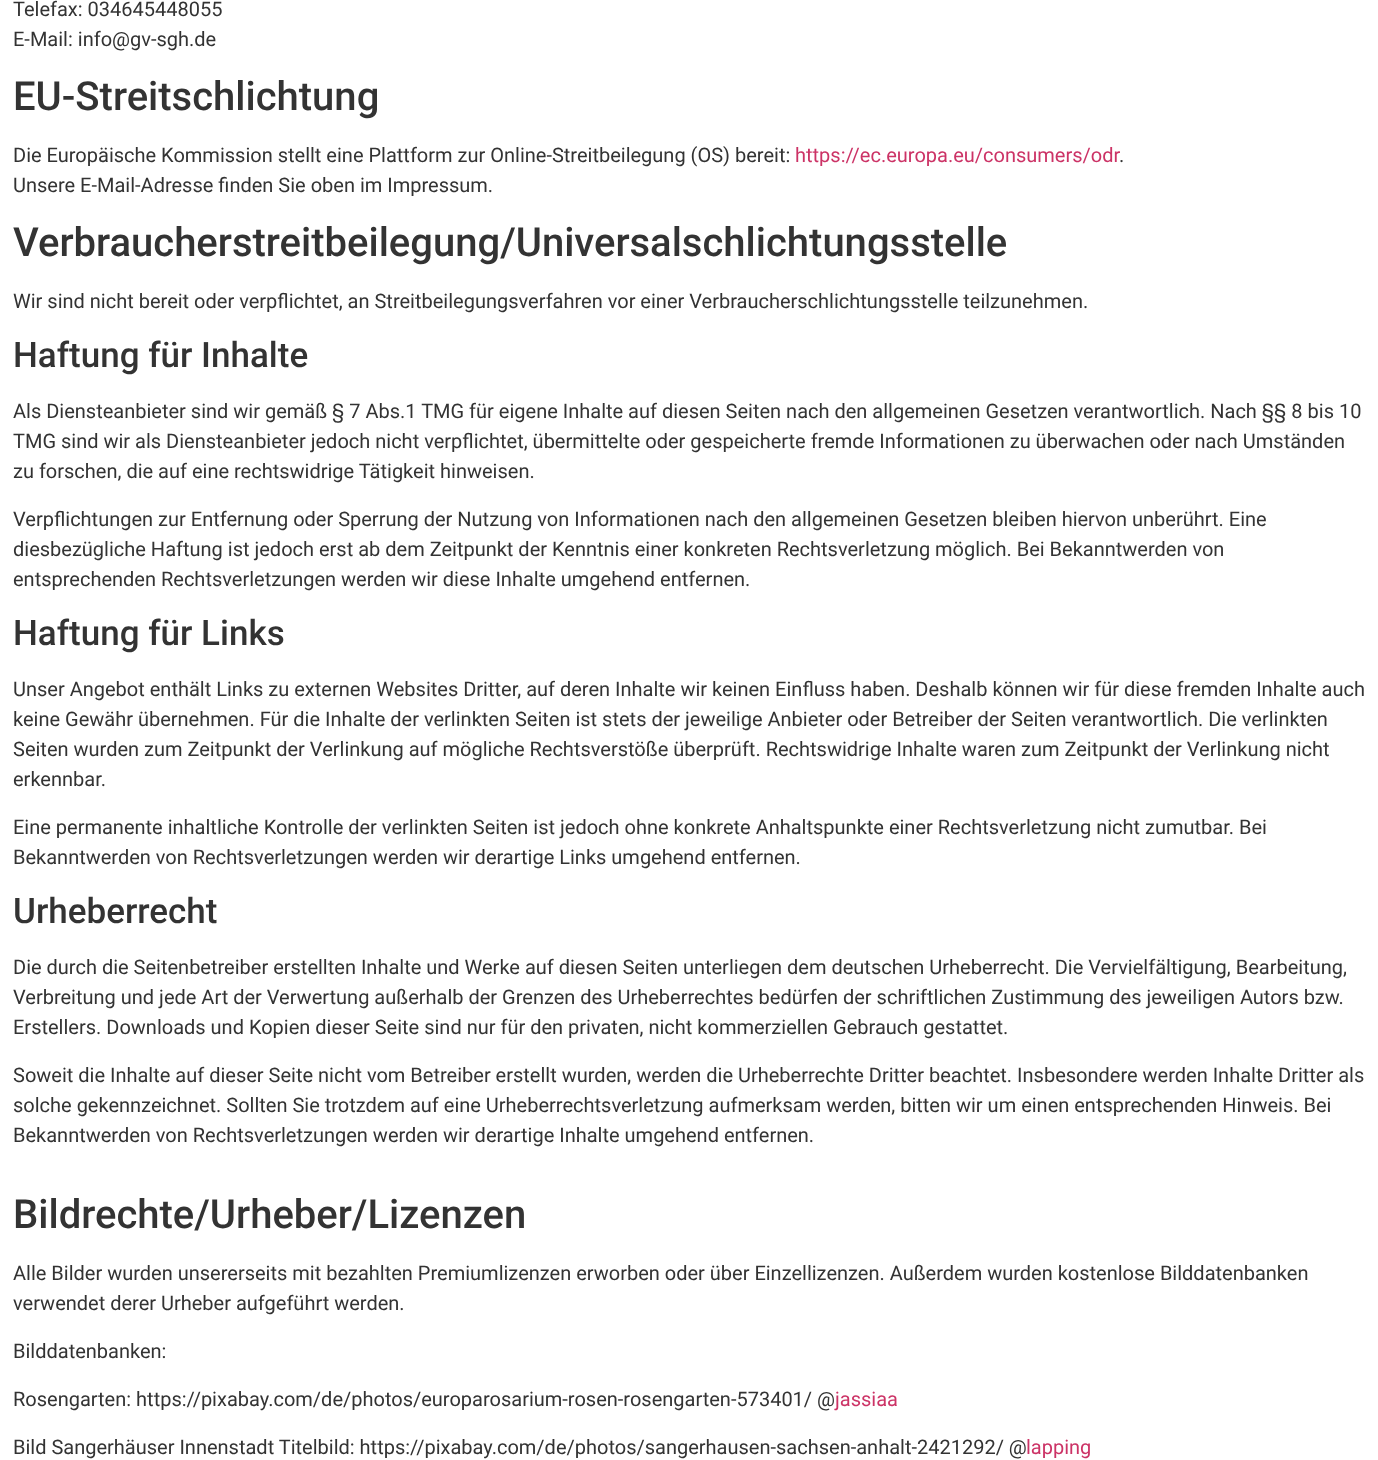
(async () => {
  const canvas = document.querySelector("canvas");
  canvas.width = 1378;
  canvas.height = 1460;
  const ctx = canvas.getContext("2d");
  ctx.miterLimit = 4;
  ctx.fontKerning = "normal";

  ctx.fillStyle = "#ffffff";
  ctx.fillRect(0, 0, 1378, 1460);
  ctx.font = "20px Roboto";
  ctx.fillStyle = "#333333";
  ctx.fillText("Telefax: 034645448055", 13, 16);
  ctx.fillText("E-Mail: info@gv-sgh.de", 13, 46);
  ctx.font = "500 40px Roboto";
  ctx.fillText("EU-Streitschlichtung", 13, 110);
  ctx.font = "20px Roboto";
  ctx.fillText("Die Europäische Kommission stellt eine Plattform zur Online-Streitbeilegung (OS) bereit:", 13, 162);
  ctx.fillStyle = "#cc3366";
  ctx.fillText("https://ec.europa.eu/consumers/odr", 795, 162);
  ctx.fillStyle = "#333333";
  ctx.fillText(".", 1119, 162);
  ctx.fillText("Unsere E-Mail-Adresse finden Sie oben im Impressum.", 13, 192);
  ctx.font = "500 40px Roboto";
  ctx.fillText("Verbraucherstreitbeilegung/Universalschlichtungsstelle", 13, 256);
  ctx.font = "20px Roboto";
  ctx.fillText("Wir sind nicht bereit oder verpflichtet, an Streitbeilegungsverfahren vor einer Verbraucherschlichtungsstelle teilzunehmen.", 13, 308);
  ctx.font = "500 35px Roboto";
  ctx.fillText("Haftung für Inhalte", 13, 367);
  ctx.font = "20px Roboto";
  for (const [text, x, y] of [
    ["Als Diensteanbieter sind wir gemäß § 7 Abs.1 TMG für eigene Inhalte auf diesen Seiten nach den allgemeinen Gesetzen verantwortlich. Nach §§ 8 bis 10", 13, 418],
    ["TMG sind wir als Diensteanbieter jedoch nicht verpflichtet, übermittelte oder gespeicherte fremde Informationen zu überwachen oder nach Umständen", 13, 448],
    ["zu forschen, die auf eine rechtswidrige Tätigkeit hinweisen.", 13, 478],
    ["Verpflichtungen zur Entfernung oder Sperrung der Nutzung von Informationen nach den allgemeinen Gesetzen bleiben hiervon unberührt. Eine", 13, 526],
    ["diesbezügliche Haftung ist jedoch erst ab dem Zeitpunkt der Kenntnis einer konkreten Rechtsverletzung möglich. Bei Bekanntwerden von", 13, 556],
    ["entsprechenden Rechtsverletzungen werden wir diese Inhalte umgehend entfernen.", 13, 586],
  ]) {
    ctx.fillText(text, x, y);
  }
  ctx.font = "500 35px Roboto";
  ctx.fillText("Haftung für Links", 13, 645);
  ctx.font = "20px Roboto";
  for (const [text, x, y] of [
    ["Unser Angebot enthält Links zu externen Websites Dritter, auf deren Inhalte wir keinen Einfluss haben. Deshalb können wir für diese fremden Inhalte auch", 13, 696],
    ["keine Gewähr übernehmen. Für die Inhalte der verlinkten Seiten ist stets der jeweilige Anbieter oder Betreiber der Seiten verantwortlich. Die verlinkten", 13, 726],
    ["Seiten wurden zum Zeitpunkt der Verlinkung auf mögliche Rechtsverstöße überprüft. Rechtswidrige Inhalte waren zum Zeitpunkt der Verlinkung nicht", 13, 756],
    ["erkennbar.", 13, 786],
    ["Eine permanente inhaltliche Kontrolle der verlinkten Seiten ist jedoch ohne konkrete Anhaltspunkte einer Rechtsverletzung nicht zumutbar. Bei", 13, 834],
    ["Bekanntwerden von Rechtsverletzungen werden wir derartige Links umgehend entfernen.", 13, 864],
  ]) {
    ctx.fillText(text, x, y);
  }
  ctx.font = "500 35px Roboto";
  ctx.fillText("Urheberrecht", 13, 923);
  ctx.font = "20px Roboto";
  for (const [text, x, y] of [
    ["Die durch die Seitenbetreiber erstellten Inhalte und Werke auf diesen Seiten unterliegen dem deutschen Urheberrecht. Die Vervielfältigung, Bearbeitung,", 13, 974],
    ["Verbreitung und jede Art der Verwertung außerhalb der Grenzen des Urheberrechtes bedürfen der schriftlichen Zustimmung des jeweiligen Autors bzw.", 13, 1004],
    ["Erstellers. Downloads und Kopien dieser Seite sind nur für den privaten, nicht kommerziellen Gebrauch gestattet.", 13, 1034],
    ["Soweit die Inhalte auf dieser Seite nicht vom Betreiber erstellt wurden, werden die Urheberrechte Dritter beachtet. Insbesondere werden Inhalte Dritter als", 13, 1082],
    ["solche gekennzeichnet. Sollten Sie trotzdem auf eine Urheberrechtsverletzung aufmerksam werden, bitten wir um einen entsprechenden Hinweis. Bei", 13, 1112],
    ["Bekanntwerden von Rechtsverletzungen werden wir derartige Inhalte umgehend entfernen.", 13, 1142],
  ]) {
    ctx.fillText(text, x, y);
  }
  ctx.font = "500 40px Roboto";
  ctx.fillText("Bildrechte/Urheber/Lizenzen", 13, 1228);
  ctx.font = "20px Roboto";
  for (const [text, x, y] of [
    ["Alle Bilder wurden unsererseits mit bezahlten Premiumlizenzen erworben oder über Einzellizenzen. Außerdem wurden kostenlose Bilddatenbanken", 13, 1280],
    ["verwendet derer Urheber aufgeführt werden.", 13, 1310],
    ["Bilddatenbanken:", 13, 1358],
    ["Rosengarten: https://pixabay.com/de/photos/europarosarium-rosen-rosengarten-573401/ @", 13, 1406],
  ]) {
    ctx.fillText(text, x, y);
  }
  ctx.fillStyle = "#cc3366";
  ctx.fillText("jassiaa", 835, 1406);
  ctx.fillStyle = "#333333";
  ctx.fillText("Bild Sangerhäuser Innenstadt Titelbild: https://pixabay.com/de/photos/sangerhausen-sachsen-anhalt-2421292/ @", 13, 1454);
  ctx.fillStyle = "#cc3366";
  ctx.fillText("lapping", 1026, 1454);
})();
